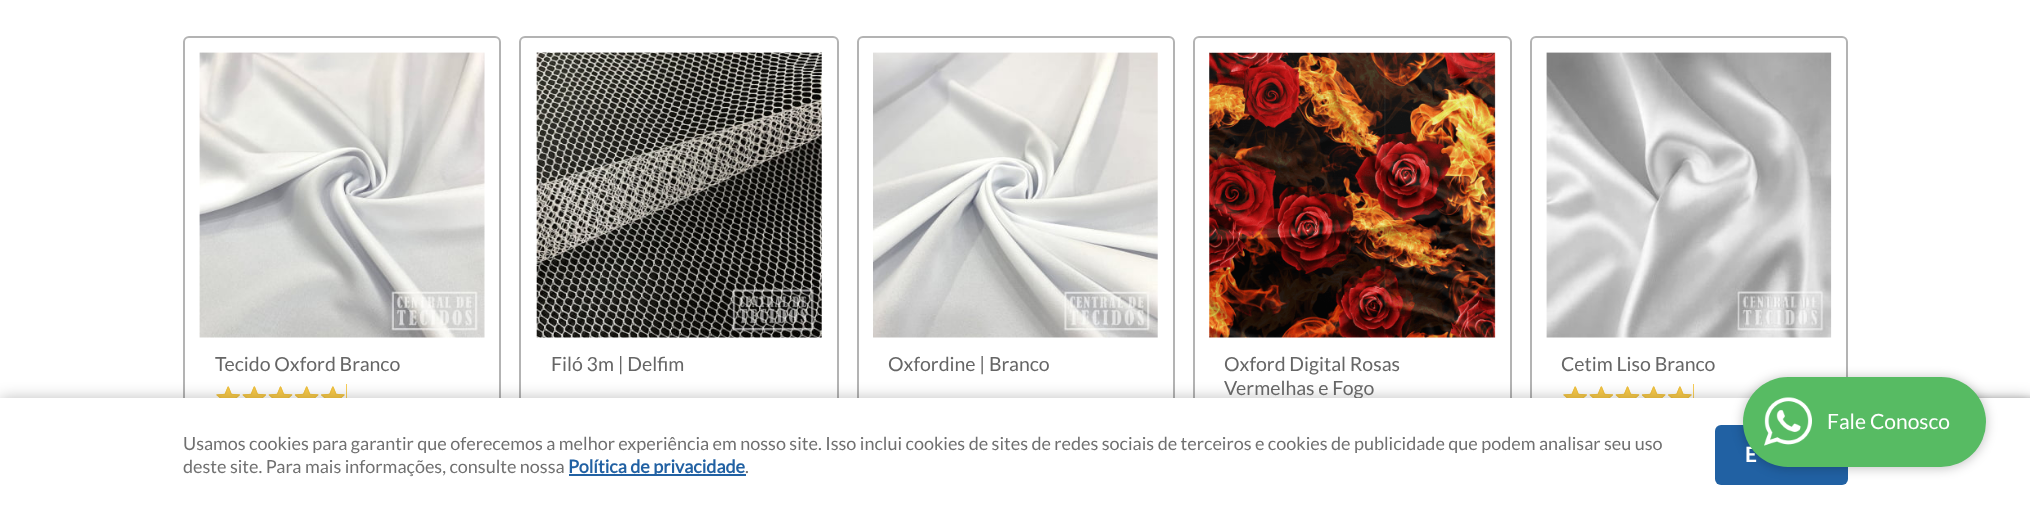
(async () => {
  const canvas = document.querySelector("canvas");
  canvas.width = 2030;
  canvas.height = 511;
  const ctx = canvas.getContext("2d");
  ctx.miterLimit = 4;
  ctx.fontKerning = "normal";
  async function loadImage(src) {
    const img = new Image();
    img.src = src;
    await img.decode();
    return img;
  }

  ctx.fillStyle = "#ffffff";
  ctx.fillRect(0, 0, 2030, 511);
  ctx.beginPath();
  ctx.roundRect(184, 37, 316, 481, 5);
  ctx.strokeStyle = "#b3b3b3";
  ctx.lineWidth = 2;
  ctx.stroke();
  ctx.drawImage(await loadImage("img/1.png"), 199, 52, 286, 286);
  ctx.fillStyle = "#f8c948";
  ctx.fillRect(216, 384, 131, 14);
  ctx.drawImage(await loadImage("img/2.png"), 215, 384, 132, 14);
  ctx.beginPath();
  ctx.roundRect(520, 37, 318, 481, 5);
  ctx.stroke();
  ctx.drawImage(await loadImage("img/3.png"), 536, 52, 286, 286);
  ctx.beginPath();
  ctx.roundRect(858, 37, 316, 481, 5);
  ctx.stroke();
  ctx.drawImage(await loadImage("img/4.png"), 873, 52, 285, 286);
  ctx.beginPath();
  ctx.roundRect(1194, 37, 317, 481, 5);
  ctx.stroke();
  ctx.drawImage(await loadImage("img/5.png"), 1209, 52, 287, 286);
  ctx.beginPath();
  ctx.roundRect(1531, 37, 316, 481, 5);
  ctx.stroke();
  ctx.drawImage(await loadImage("img/6.png"), 1546, 52, 286, 286);
  ctx.fillRect(1563, 384, 131, 14);
  ctx.drawImage(await loadImage("img/2.png"), 1562, 384, 132, 14);
  ctx.fillStyle = "#808080";
  ctx.filter = "blur(4px)";
  ctx.beginPath();
  ctx.roundRect(1926, 401, 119, 90, 3);
  ctx.fill();
  ctx.filter = "none";
  ctx.fillStyle = "rgba(0, 0, 0, 0.25)";
  ctx.filter = "blur(7.5px)";
  ctx.beginPath();
  ctx.rect(0, 398, 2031, 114);
  ctx.fill();
  ctx.filter = "none";
  ctx.font = "19.5px Lato";
  ctx.fillStyle = "#666666";
  for (const [text, x, y] of [
    ["Tecido Oxford Branco", 215, 371],
    ["Filó 3m | Delfim", 551, 371],
    ["Oxfordine | Branco", 888, 371],
    ["Oxford Digital Rosas", 1224, 371],
    ["Vermelhas e Fogo", 1224, 395],
    ["Cetim Liso Branco", 1561, 371],
  ]) {
    ctx.fillText(text, x, y);
  }
  ctx.fillStyle = "#ffffff";
  ctx.fillRect(0, 398, 2030, 113);
  ctx.font = "18px Lato";
  ctx.fillStyle = "#707070";
  ctx.fillText("Usamos cookies para garantir que oferecemos a melhor experiência em nosso site. Isso inclui cookies de sites de redes sociais de terceiros e cookies de publicidade que podem analisar seu uso", 183, 450);
  ctx.fillText("deste site. Para mais informações, consulte nossa", 183, 473);
  ctx.fillStyle = "#2161a3";
  ctx.fillRect(569, 474, 177, 2);
  ctx.font = "bold 18px Lato";
  ctx.fillText("Política de privacidade", 568, 473);
  ctx.font = "18px Lato";
  ctx.fillStyle = "#707070";
  ctx.fillText(".", 745, 473);
  ctx.fillStyle = "#2161a3";
  ctx.beginPath();
  ctx.roundRect(1715, 425, 133, 60, 6);
  ctx.fill();
  ctx.fillStyle = "rgba(0, 0, 0, 0.25)";
  ctx.filter = "blur(6px)";
  ctx.beginPath();
  ctx.roundRect(1743, 378, 243, 90, 45);
  ctx.fill();
  ctx.filter = "none";
  ctx.font = "bold 21px 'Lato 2'";
  ctx.fillStyle = "#ffffff";
  ctx.fillText("E", 1745, 462);
  ctx.fillStyle = "#57bb63";
  ctx.beginPath();
  ctx.roundRect(1743, 377, 243, 90, 45);
  ctx.fill();
  ctx.font = "21px Lato";
  ctx.fillStyle = "#ffffff";
  ctx.fillText("Fale Conosco", 1827, 429);
  ctx.drawImage(await loadImage("img/7.png"), 1764, 397, 48, 49);
})();
